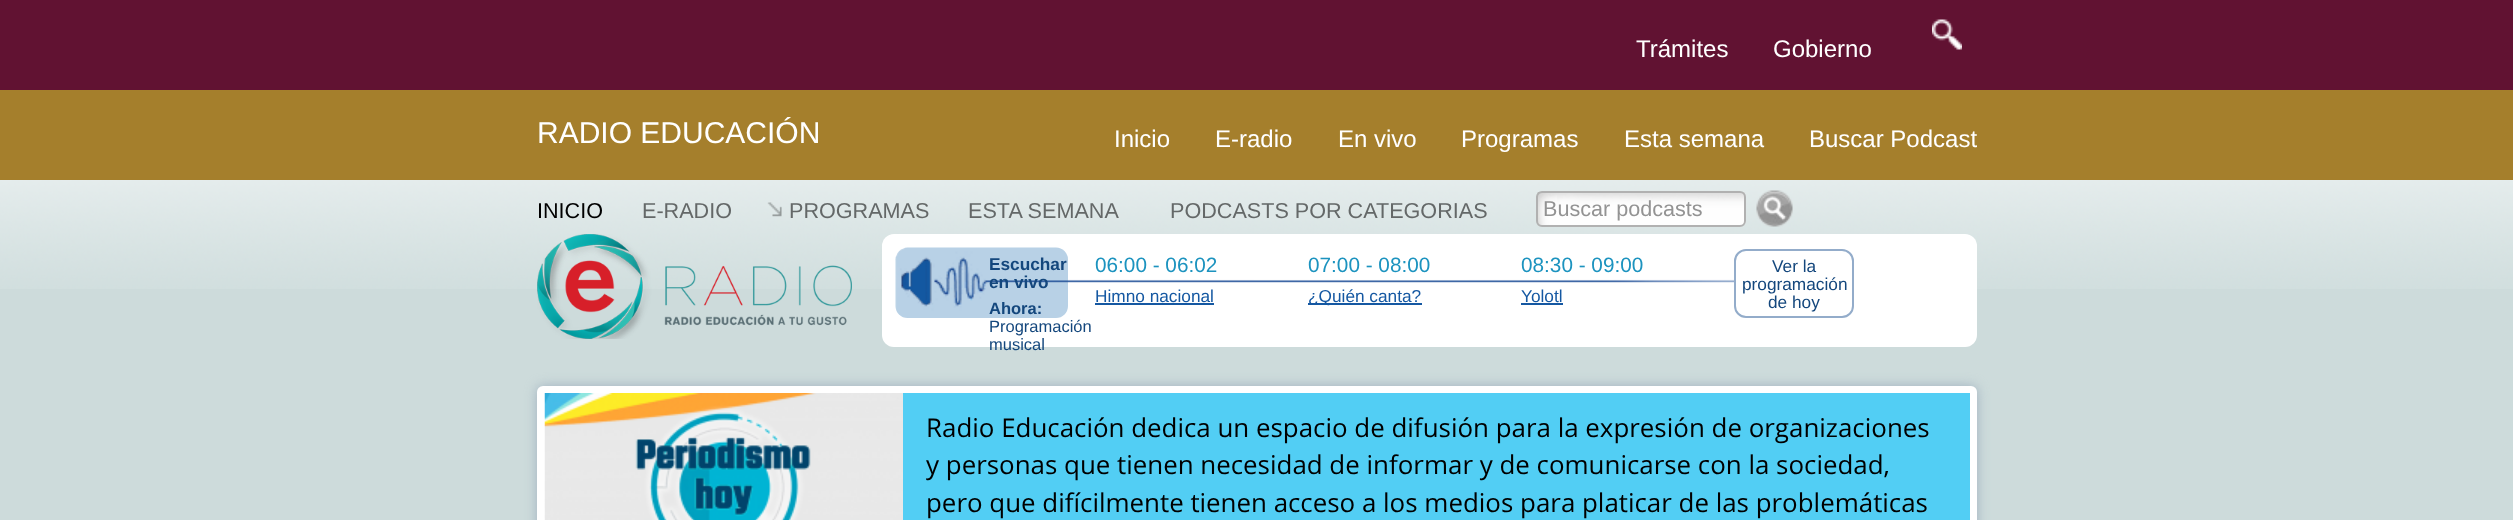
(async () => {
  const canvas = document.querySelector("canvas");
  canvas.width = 2513;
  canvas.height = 520;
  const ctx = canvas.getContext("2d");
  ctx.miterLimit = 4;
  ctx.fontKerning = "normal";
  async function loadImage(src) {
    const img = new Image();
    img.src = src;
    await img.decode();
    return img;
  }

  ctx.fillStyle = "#cddbdb";
  ctx.fillRect(0, 0, 2513, 520);
  ctx.drawImage(await loadImage("img/1.png"), 0, 180, 2513, 109);
  ctx.fillStyle = "#611232";
  ctx.fillRect(0, 0, 2513, 90);
  ctx.drawImage(await loadImage("img/2.png"), 1932, 19, 30, 31);
  ctx.fillStyle = "#a57f2c";
  ctx.fillRect(0, 90, 2513, 90);
  ctx.drawImage(await loadImage("img/3.png"), 1537, 192, 209, 35);
  ctx.beginPath();
  ctx.roundRect(1537, 192, 208, 34, 5);
  ctx.strokeStyle = "#b1b1b1";
  ctx.lineWidth = 2;
  ctx.stroke();
  ctx.drawImage(await loadImage("img/4.png"), 1756, 190, 37, 37);
  ctx.drawImage(await loadImage("img/5.png"), 767, 202, 15, 15);
  ctx.drawImage(await loadImage("img/6.png"), 537, 234, 315, 105);
  ctx.fillStyle = "#ffffff";
  ctx.beginPath();
  ctx.roundRect(882, 234, 1095, 113, 12);
  ctx.fill();
  ctx.drawImage(await loadImage("img/7.png"), 1068, 279, 666, 4);
  ctx.drawImage(await loadImage("img/8.png"), 895, 247, 173, 71);
  for (const [x, y, w, h, color] of [
    [1095, 303, 119, 2, "#1558a2"],
    [1308, 303, 114, 2, "#1558a2"],
    [1521, 303, 42, 2, "#1558a2"],
  ]) {
    ctx.fillStyle = color;
    ctx.fillRect(x, y, w, h);
  }
  ctx.beginPath();
  ctx.roundRect(1735, 250, 118, 67, 11);
  ctx.strokeStyle = "#93acca";
  ctx.stroke();
  ctx.fillStyle = "#a0b1c0";
  ctx.filter = "blur(6px)";
  ctx.beginPath();
  ctx.roundRect(537, 386, 1440, 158, 6);
  ctx.fill();
  ctx.filter = "none";
  ctx.fillStyle = "#ffffff";
  ctx.beginPath();
  ctx.roundRect(537, 386, 1440, 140, 6);
  ctx.fill();
  ctx.fillStyle = "#52cef4";
  ctx.fillRect(903, 393, 1067, 127);
  ctx.drawImage(await loadImage("img/9.png"), 544, 393, 359, 127);
  ctx.font = "24px Liberation Sans";
  ctx.fillStyle = "#ffffff";
  ctx.fillText("Trámites", 1636, 57);
  ctx.fillText("Gobierno", 1773, 57);
  ctx.font = "30px Liberation Sans";
  ctx.fillText("RADIO EDUCACIÓN", 537, 143);
  ctx.font = "24px Liberation Sans";
  for (const [text, x, y] of [
    ["Inicio", 1114, 147],
    ["E-radio", 1215, 147],
    ["En vivo", 1338, 147],
    ["Programas", 1461, 147],
    ["Esta semana", 1624, 147],
    ["Buscar Podcast", 1809, 147],
  ]) {
    ctx.fillText(text, x, y);
  }
  ctx.font = "21.6px Liberation Sans";
  ctx.fillStyle = "#646868";
  ctx.fillText("PODCASTS POR CATEGORIAS", 1170, 218);
  ctx.fillStyle = "#939393";
  ctx.fillText("Buscar podcasts", 1543, 216);
  ctx.fillStyle = "#000000";
  ctx.fillText("INICIO", 537, 218);
  ctx.fillStyle = "#646868";
  for (const [text, x, y] of [
    ["E-RADIO", 642, 218],
    ["PROGRAMAS", 789, 218],
    ["ESTA SEMANA", 968, 218],
  ]) {
    ctx.fillText(text, x, y);
  }
  ctx.font = "bold 17.25px Liberation Sans";
  ctx.fillStyle = "#14477d";
  ctx.fillText("Escuchar", 989, 270);
  ctx.fillText("en vivo", 989, 288);
  ctx.font = "bold 16.5px Liberation Sans";
  ctx.fillText("Ahora:", 989, 314);
  ctx.font = "16.5px Liberation Sans";
  ctx.fillText("Programación", 989, 332);
  ctx.fillText("musical", 989, 350);
  ctx.font = "20.75px Liberation Sans";
  ctx.fillStyle = "#1c93bf";
  ctx.fillText("06:00 - 06:02", 1095, 272);
  ctx.font = "17.25px Liberation Sans";
  ctx.fillStyle = "#1558a2";
  ctx.fillText("Himno nacional", 1095, 302);
  ctx.font = "20.75px Liberation Sans";
  ctx.fillStyle = "#1c93bf";
  ctx.fillText("07:00 - 08:00", 1308, 272);
  ctx.font = "17.25px Liberation Sans";
  ctx.fillStyle = "#1558a2";
  ctx.fillText("¿Quién canta?", 1308, 302);
  ctx.font = "20.75px Liberation Sans";
  ctx.fillStyle = "#1c93bf";
  ctx.fillText("08:30 - 09:00", 1521, 272);
  ctx.font = "17.25px Liberation Sans";
  ctx.fillStyle = "#1558a2";
  ctx.fillText("Yolotl", 1521, 302);
  ctx.fillStyle = "#14477d";
  for (const [text, x, y] of [
    ["Ver la", 1772, 272],
    ["programación", 1742, 290],
    ["de hoy", 1768, 308],
  ]) {
    ctx.fillText(text, x, y);
  }
  ctx.font = "25.9px Open Sans";
  ctx.fillStyle = "#000000";
  for (const [text, x, y] of [
    ["Radio Educación dedica un espacio de difusión para la expresión de organizaciones", 926, 437],
    ["y personas que tienen necesidad de informar y de comunicarse con la sociedad,", 926, 474],
    ["pero que difícilmente tienen acceso a los medios para platicar de las problemáticas", 926, 512],
  ]) {
    ctx.fillText(text, x, y);
  }
})();
